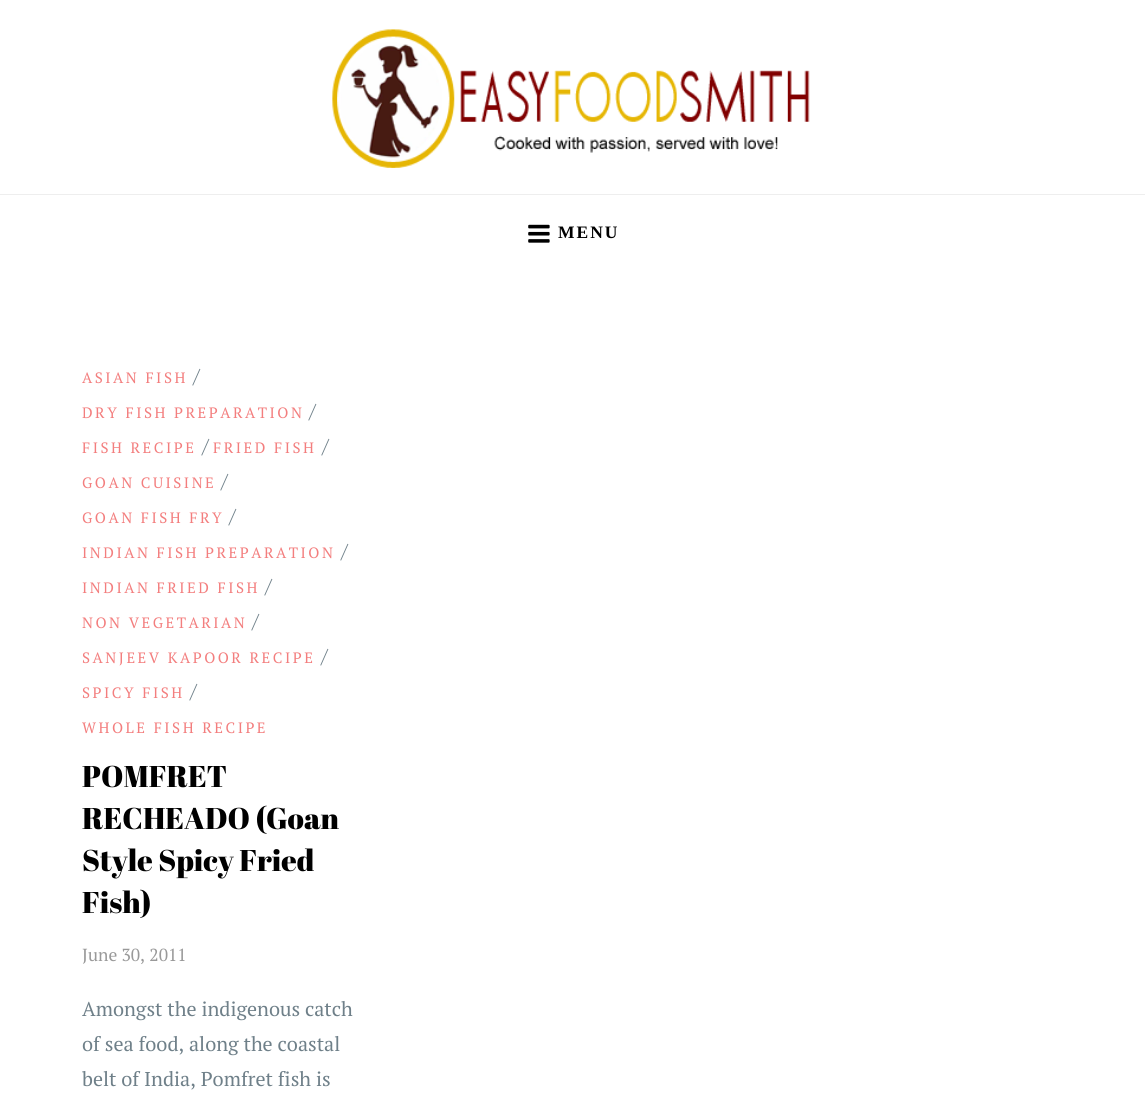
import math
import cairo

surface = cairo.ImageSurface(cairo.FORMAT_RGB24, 1145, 1103)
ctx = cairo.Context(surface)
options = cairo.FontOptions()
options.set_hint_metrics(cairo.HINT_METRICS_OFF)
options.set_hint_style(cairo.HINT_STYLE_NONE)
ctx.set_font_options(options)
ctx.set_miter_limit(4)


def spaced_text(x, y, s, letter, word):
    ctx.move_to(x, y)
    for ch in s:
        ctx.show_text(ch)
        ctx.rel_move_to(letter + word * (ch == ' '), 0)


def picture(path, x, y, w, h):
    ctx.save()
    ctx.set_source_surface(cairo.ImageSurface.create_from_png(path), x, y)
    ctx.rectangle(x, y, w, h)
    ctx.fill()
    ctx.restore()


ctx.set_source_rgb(1, 1, 1)
ctx.paint()
picture("img1.png", 332, 29, 478, 139)
ctx.set_source_rgb(0.933, 0.933, 0.933)
ctx.rectangle(0, 194, 1145, 1)
ctx.fill()
picture("img2.png", 528, 224, 22, 19)
ctx.select_font_face("Liberation Serif", cairo.FONT_SLANT_NORMAL, cairo.FONT_WEIGHT_BOLD)
ctx.set_font_size(17.5)
ctx.set_source_rgb(0, 0, 0)
spaced_text(558, 238, "MENU", 2, 0)
ctx.select_font_face("PT Serif")
ctx.set_font_size(15)
ctx.set_source_rgb(0.953, 0.494, 0.494)
spaced_text(82, 383, "ASIAN FISH", 2.5, 0)
ctx.set_font_size(20)
ctx.set_source_rgb(0.435, 0.502, 0.537)
ctx.move_to(193, 383)
ctx.show_text("/")
ctx.set_font_size(15)
ctx.set_source_rgb(0.953, 0.494, 0.494)
spaced_text(82, 418, "DRY FISH PREPARATION", 2.5, 0)
ctx.set_font_size(20)
ctx.set_source_rgb(0.435, 0.502, 0.537)
ctx.move_to(309, 418)
ctx.show_text("/")
ctx.set_font_size(15)
ctx.set_source_rgb(0.953, 0.494, 0.494)
spaced_text(82, 453, "FISH RECIPE", 2.5, 0)
ctx.set_font_size(20)
ctx.set_source_rgb(0.435, 0.502, 0.537)
ctx.move_to(202, 453)
ctx.show_text("/")
ctx.set_font_size(15)
ctx.set_source_rgb(0.953, 0.494, 0.494)
spaced_text(213, 453, "FRIED FISH", 2.5, 0)
ctx.set_font_size(20)
ctx.set_source_rgb(0.435, 0.502, 0.537)
ctx.move_to(322, 453)
ctx.show_text("/")
ctx.set_font_size(15)
ctx.set_source_rgb(0.953, 0.494, 0.494)
spaced_text(82, 488, "GOAN CUISINE", 2.5, 0)
ctx.set_font_size(20)
ctx.set_source_rgb(0.435, 0.502, 0.537)
ctx.move_to(221, 488)
ctx.show_text("/")
ctx.set_font_size(15)
ctx.set_source_rgb(0.953, 0.494, 0.494)
spaced_text(82, 523, "GOAN FISH FRY", 2.5, 0)
ctx.set_font_size(20)
ctx.set_source_rgb(0.435, 0.502, 0.537)
ctx.move_to(229, 523)
ctx.show_text("/")
ctx.set_font_size(15)
ctx.set_source_rgb(0.953, 0.494, 0.494)
spaced_text(82, 558, "INDIAN FISH PREPARATION", 2.5, 0)
ctx.set_font_size(20)
ctx.set_source_rgb(0.435, 0.502, 0.537)
ctx.move_to(341, 558)
ctx.show_text("/")
ctx.set_font_size(15)
ctx.set_source_rgb(0.953, 0.494, 0.494)
spaced_text(82, 593, "INDIAN FRIED FISH", 2.5, 0)
ctx.set_font_size(20)
ctx.set_source_rgb(0.435, 0.502, 0.537)
ctx.move_to(265, 593)
ctx.show_text("/")
ctx.set_font_size(15)
ctx.set_source_rgb(0.953, 0.494, 0.494)
spaced_text(82, 628, "NON VEGETARIAN", 2.5, 0)
ctx.set_font_size(20)
ctx.set_source_rgb(0.435, 0.502, 0.537)
ctx.move_to(252, 628)
ctx.show_text("/")
ctx.set_font_size(15)
ctx.set_source_rgb(0.953, 0.494, 0.494)
spaced_text(82, 663, "SANJEEV KAPOOR RECIPE", 2.5, 0)
ctx.set_font_size(20)
ctx.set_source_rgb(0.435, 0.502, 0.537)
ctx.move_to(321, 663)
ctx.show_text("/")
ctx.set_font_size(15)
ctx.set_source_rgb(0.953, 0.494, 0.494)
spaced_text(82, 698, "SPICY FISH", 2.5, 0)
ctx.set_font_size(20)
ctx.set_source_rgb(0.435, 0.502, 0.537)
ctx.move_to(190, 698)
ctx.show_text("/")
ctx.set_font_size(15)
ctx.set_source_rgb(0.953, 0.494, 0.494)
spaced_text(82, 733, "WHOLE FISH RECIPE", 2.5, 0)
ctx.select_font_face("Abril Fatface")
ctx.set_font_size(30)
ctx.set_source_rgb(0, 0, 0)
ctx.move_to(82, 787)
ctx.show_text("POMFRET")
ctx.move_to(82, 829)
ctx.show_text("RECHEADO (Goan")
ctx.move_to(82, 871)
ctx.show_text("Style Spicy Fried")
ctx.move_to(82, 913)
ctx.show_text("Fish)")
ctx.select_font_face("PT Serif")
ctx.set_font_size(17.5)
ctx.set_source_rgb(0.6, 0.6, 0.6)
ctx.move_to(82, 961)
ctx.show_text("June 30, 2011")
ctx.set_font_size(20)
ctx.set_source_rgb(0.435, 0.502, 0.537)
ctx.move_to(82, 1016)
ctx.show_text("Amongst the indigenous catch")
ctx.move_to(82, 1051)
ctx.show_text("of sea food, along the coastal")
ctx.move_to(82, 1086)
ctx.show_text("belt of India, Pomfret fish is")
surface.write_to_png("page.png")
